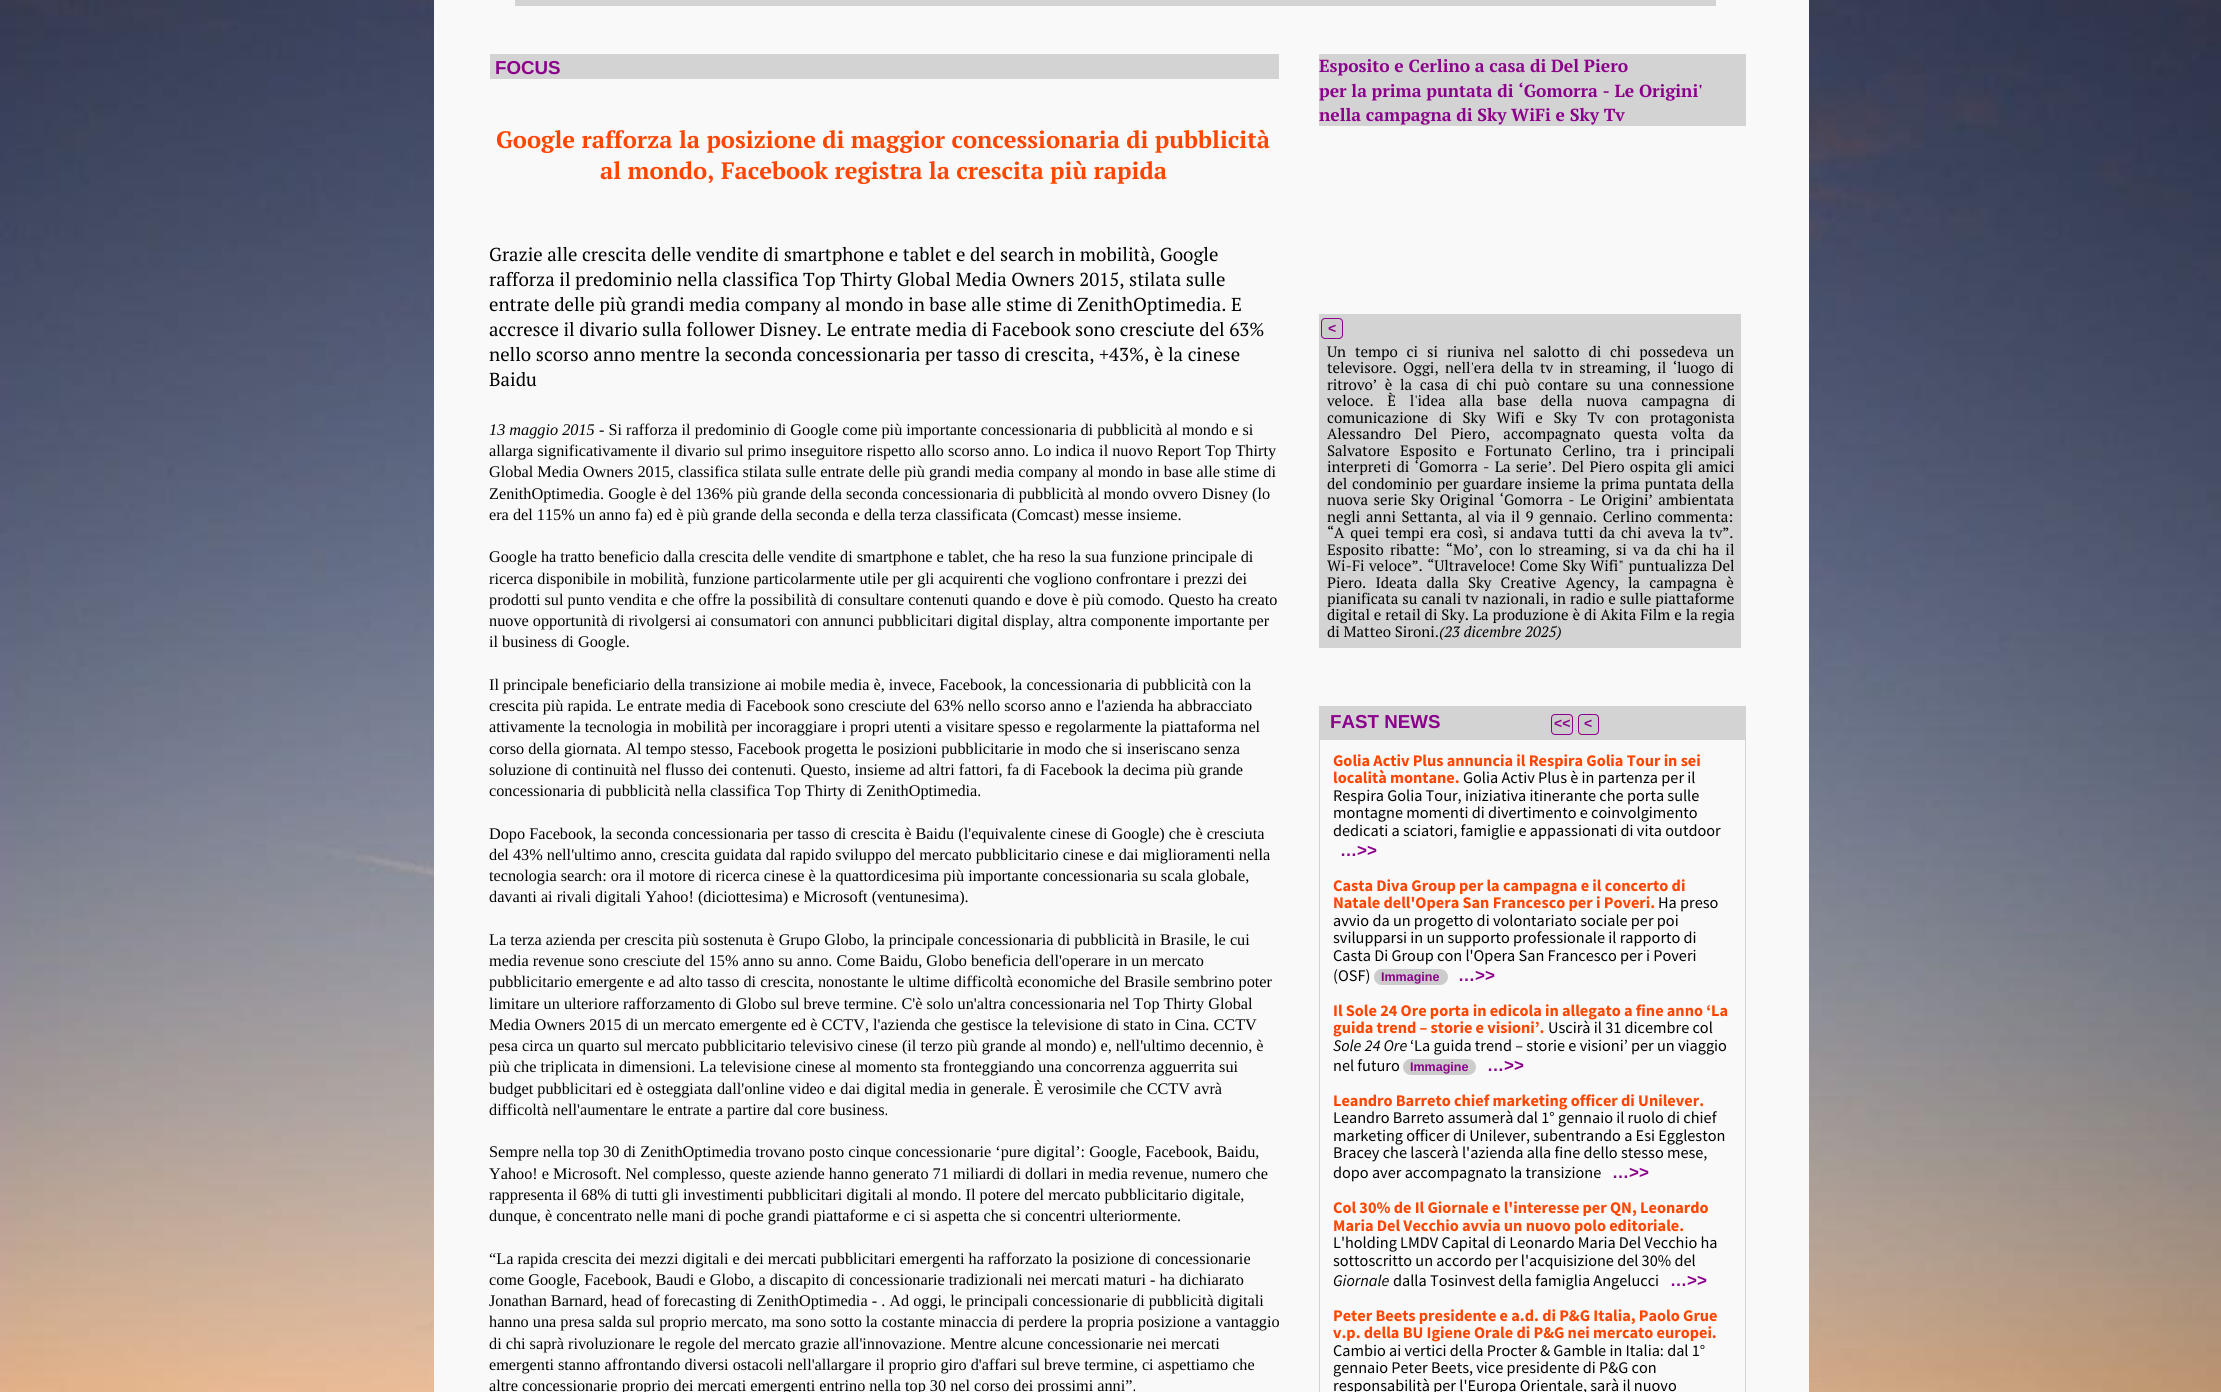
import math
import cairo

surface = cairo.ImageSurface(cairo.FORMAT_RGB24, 2221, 1392)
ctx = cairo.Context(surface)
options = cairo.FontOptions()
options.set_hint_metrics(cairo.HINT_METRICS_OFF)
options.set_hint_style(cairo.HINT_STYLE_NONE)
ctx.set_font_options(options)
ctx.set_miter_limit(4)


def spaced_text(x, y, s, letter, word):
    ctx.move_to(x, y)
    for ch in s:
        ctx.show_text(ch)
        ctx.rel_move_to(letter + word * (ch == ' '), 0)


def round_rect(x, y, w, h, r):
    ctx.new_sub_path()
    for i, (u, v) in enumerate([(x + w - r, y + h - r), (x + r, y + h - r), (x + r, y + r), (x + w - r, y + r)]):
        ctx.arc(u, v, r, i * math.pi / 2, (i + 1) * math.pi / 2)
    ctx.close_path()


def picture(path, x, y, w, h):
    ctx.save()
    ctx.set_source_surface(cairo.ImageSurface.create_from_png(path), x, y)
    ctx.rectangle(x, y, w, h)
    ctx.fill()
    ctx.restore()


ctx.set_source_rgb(1, 1, 1)
ctx.paint()
picture("img1.png", 0, 0, 2221, 1392)
ctx.set_source_rgb(0.973, 0.973, 0.973)
ctx.rectangle(434, 0, 1375, 1392)
ctx.fill()
ctx.set_source_rgb(0.827, 0.827, 0.827)
ctx.rectangle(515, 0, 1201, 6)
ctx.fill()
ctx.rectangle(490, 54, 789, 25)
ctx.fill()
ctx.select_font_face("Liberation Sans", cairo.FONT_SLANT_NORMAL, cairo.FONT_WEIGHT_BOLD)
ctx.set_font_size(18.75)
ctx.set_source_rgb(0.545, 0, 0.545)
ctx.move_to(495, 74)
ctx.show_text("FOCUS")
ctx.select_font_face("PT Serif", cairo.FONT_SLANT_NORMAL, cairo.FONT_WEIGHT_BOLD)
ctx.set_font_size(23.75)
ctx.set_source_rgb(1, 0.271, 0)
ctx.move_to(496, 148)
ctx.show_text("Google rafforza la posizione di maggior concessionaria di pubblicità")
ctx.move_to(600, 179)
ctx.show_text("al mondo, Facebook registra la crescita più rapida")
ctx.select_font_face("PT Serif")
ctx.set_font_size(18.75)
ctx.set_source_rgb(0, 0, 0)
ctx.move_to(489, 261)
ctx.show_text("Grazie alle crescita delle vendite di smartphone e tablet e del search in mobilità, Google")
ctx.move_to(489, 286)
ctx.show_text("rafforza il predominio nella classifica Top Thirty Global Media Owners 2015, stilata sulle")
ctx.move_to(489, 311)
ctx.show_text("entrate delle più grandi media company al mondo in base alle stime di ZenithOptimedia. E")
ctx.move_to(489, 336)
ctx.show_text("accresce il divario sulla follower Disney. Le entrate media di Facebook sono cresciute del 63%")
ctx.move_to(489, 361)
ctx.show_text("nello scorso anno mentre la seconda concessionaria per tasso di crescita, +43%, è la cinese")
ctx.move_to(489, 386)
ctx.show_text("Baidu")
ctx.select_font_face("Liberation Serif", cairo.FONT_SLANT_ITALIC)
ctx.set_font_size(16.25)
ctx.move_to(489, 435)
ctx.show_text("13 maggio 2015")
ctx.select_font_face("Liberation Serif")
ctx.move_to(599, 435)
ctx.show_text("- Si rafforza il predominio di Google come più importante concessionaria di pubblicità al mondo e si")
ctx.move_to(489, 456)
ctx.show_text("allarga significativamente il divario sul primo inseguitore rispetto allo scorso anno. Lo indica il nuovo Report Top Thirty")
ctx.move_to(489, 477)
ctx.show_text("Global Media Owners 2015, classifica stilata sulle entrate delle più grandi media company al mondo in base alle stime di")
ctx.move_to(489, 499)
ctx.show_text("ZenithOptimedia. Google è del 136% più grande della seconda concessionaria di pubblicità al mondo ovvero Disney (lo")
ctx.move_to(489, 520)
ctx.show_text("era del 115% un anno fa) ed è più grande della seconda e della terza classificata (Comcast) messe insieme.")
ctx.move_to(489, 562)
ctx.show_text("Google ha tratto beneficio dalla crescita delle vendite di smartphone e tablet, che ha reso la sua funzione principale di")
ctx.move_to(489, 584)
ctx.show_text("ricerca disponibile in mobilità, funzione particolarmente utile per gli acquirenti che vogliono confrontare i prezzi dei")
ctx.move_to(489, 605)
ctx.show_text("prodotti sul punto vendita e che offre la possibilità di consultare contenuti quando e dove è più comodo. Questo ha creato")
ctx.move_to(489, 626)
ctx.show_text("nuove opportunità di rivolgersi ai consumatori con annunci pubblicitari digital display, altra componente importante per")
ctx.move_to(489, 647)
ctx.show_text("il business di Google.")
ctx.move_to(489, 690)
ctx.show_text("Il principale beneficiario della transizione ai mobile media è, invece, Facebook, la concessionaria di pubblicità con la")
ctx.move_to(489, 711)
ctx.show_text("crescita più rapida. Le entrate media di Facebook sono cresciute del 63% nello scorso anno e l'azienda ha abbracciato")
ctx.move_to(489, 732)
ctx.show_text("attivamente la tecnologia in mobilità per incoraggiare i propri utenti a visitare spesso e regolarmente la piattaforma nel")
ctx.move_to(489, 754)
ctx.show_text("corso della giornata. Al tempo stesso, Facebook progetta le posizioni pubblicitarie in modo che si inseriscano senza")
ctx.move_to(489, 775)
ctx.show_text("soluzione di continuità nel flusso dei contenuti. Questo, insieme ad altri fattori, fa di Facebook la decima più grande")
ctx.move_to(489, 796)
ctx.show_text("concessionaria di pubblicità nella classifica Top Thirty di ZenithOptimedia.")
ctx.move_to(489, 839)
ctx.show_text("Dopo Facebook, la seconda concessionaria per tasso di crescita è Baidu (l'equivalente cinese di Google) che è cresciuta")
ctx.move_to(489, 860)
ctx.show_text("del 43% nell'ultimo anno, crescita guidata dal rapido sviluppo del mercato pubblicitario cinese e dai miglioramenti nella")
ctx.move_to(489, 881)
ctx.show_text("tecnologia search: ora il motore di ricerca cinese è la quattordicesima più importante concessionaria su scala globale,")
ctx.move_to(489, 902)
ctx.show_text("davanti ai rivali digitali Yahoo! (diciottesima) e Microsoft (ventunesima).")
ctx.move_to(489, 945)
ctx.show_text("La terza azienda per crescita più sostenuta è Grupo Globo, la principale concessionaria di pubblicità in Brasile, le cui")
ctx.move_to(489, 966)
ctx.show_text("media revenue sono cresciute del 15% anno su anno. Come Baidu, Globo beneficia dell'operare in un mercato")
ctx.move_to(489, 987)
ctx.show_text("pubblicitario emergente e ad alto tasso di crescita, nonostante le ultime difficoltà economiche del Brasile sembrino poter")
ctx.move_to(489, 1009)
ctx.show_text("limitare un ulteriore rafforzamento di Globo sul breve termine. C'è solo un'altra concessionaria nel Top Thirty Global")
ctx.move_to(489, 1030)
ctx.show_text("Media Owners 2015 di un mercato emergente ed è CCTV, l'azienda che gestisce la televisione di stato in Cina. CCTV")
ctx.move_to(489, 1051)
ctx.show_text("pesa circa un quarto sul mercato pubblicitario televisivo cinese (il terzo più grande al mondo) e, nell'ultimo decennio, è")
ctx.move_to(489, 1072)
ctx.show_text("più che triplicata in dimensioni. La televisione cinese al momento sta fronteggiando una concorrenza agguerrita sui")
ctx.move_to(489, 1094)
ctx.show_text("budget pubblicitari ed è osteggiata dall'online video e dai digital media in generale. È verosimile che CCTV avrà")
ctx.move_to(489, 1115)
ctx.show_text("difficoltà nell'aumentare le entrate a partire dal core business.")
ctx.move_to(489, 1157)
ctx.show_text("Sempre nella top 30 di ZenithOptimedia trovano posto cinque concessionarie ‘pure digital’: Google, Facebook, Baidu,")
ctx.move_to(489, 1179)
ctx.show_text("Yahoo! e Microsoft. Nel complesso, queste aziende hanno generato 71 miliardi di dollari in media revenue, numero che")
ctx.move_to(489, 1200)
ctx.show_text("rappresenta il 68% di tutti gli investimenti pubblicitari digitali al mondo. Il potere del mercato pubblicitario digitale,")
ctx.move_to(489, 1221)
ctx.show_text("dunque, è concentrato nelle mani di poche grandi piattaforme e ci si aspetta che si concentri ulteriormente.")
ctx.move_to(489, 1264)
ctx.show_text("“La rapida crescita dei mezzi digitali e dei mercati pubblicitari emergenti ha rafforzato la posizione di concessionarie")
ctx.move_to(489, 1285)
ctx.show_text("come Google, Facebook, Baudi e Globo, a discapito di concessionarie tradizionali nei mercati maturi - ha dichiarato")
ctx.move_to(489, 1306)
ctx.show_text("Jonathan Barnard, head of forecasting di ZenithOptimedia - . Ad oggi, le principali concessionarie di pubblicità digitali")
ctx.move_to(489, 1327)
ctx.show_text("hanno una presa salda sul proprio mercato, ma sono sotto la costante minaccia di perdere la propria posizione a vantaggio")
ctx.move_to(489, 1349)
ctx.show_text("di chi saprà rivoluzionare le regole del mercato grazie all'innovazione. Mentre alcune concessionarie nei mercati")
ctx.move_to(489, 1370)
ctx.show_text("emergenti stanno affrontando diversi ostacoli nell'allargare il proprio giro d'affari sul breve termine, ci aspettiamo che")
ctx.move_to(489, 1391)
ctx.show_text("altre concessionarie proprio dei mercati emergenti entrino nella top 30 nel corso dei prossimi anni”.")
ctx.set_source_rgb(0.827, 0.827, 0.827)
ctx.rectangle(1319, 54, 427, 72)
ctx.fill()
ctx.select_font_face("PT Serif", cairo.FONT_SLANT_NORMAL, cairo.FONT_WEIGHT_BOLD)
ctx.set_font_size(17.5)
ctx.set_source_rgb(0.545, 0, 0.545)
ctx.move_to(1319, 72)
ctx.show_text("Esposito e Cerlino a casa di Del Piero")
ctx.move_to(1319, 97)
ctx.show_text("per la prima puntata di ‘Gomorra - Le Origini'")
ctx.move_to(1319, 121)
ctx.show_text("nella campagna di Sky WiFi e Sky Tv")
ctx.set_source_rgb(0.827, 0.827, 0.827)
ctx.rectangle(1319, 314, 422, 334)
ctx.fill()
ctx.set_source_rgb(0.8, 0.8, 0.8)
round_rect(1321.5, 318.5, 21, 20, 3.5)
ctx.fill_preserve()
ctx.set_source_rgb(0.545, 0, 0.545)
ctx.set_line_width(1)
ctx.stroke()
ctx.select_font_face("Liberation Sans", cairo.FONT_SLANT_NORMAL, cairo.FONT_WEIGHT_BOLD)
ctx.set_font_size(14)
ctx.move_to(1328, 333)
ctx.show_text("<")
ctx.select_font_face("PT Serif")
ctx.set_font_size(15)
ctx.set_source_rgb(0, 0, 0)
spaced_text(1327, 357, "Un tempo ci si riuniva nel salotto di chi possedeva un", 0, 5.25)
spaced_text(1327, 373, "televisore. Oggi, nell'era della tv in streaming, il ‘luogo di", 0, 2.75)
spaced_text(1327, 390, "ritrovo’ è la casa di chi può contare su una connessione", 0, 4)
spaced_text(1327, 406, "veloce. È l'idea alla base della nuova campagna di", 0, 10)
spaced_text(1327, 423, "comunicazione di Sky Wifi e Sky Tv con protagonista", 0, 7)
spaced_text(1327, 439, "Alessandro Del Piero, accompagnato questa volta da", 0, 9.75)
spaced_text(1327, 456, "Salvatore Esposito e Fortunato Cerlino, tra i principali", 0, 6.75)
spaced_text(1327, 472, "interpreti di ‘Gomorra - La serie’. Del Piero ospita gli amici", 0, 1.6)
spaced_text(1327, 489, "del condominio per guardare insieme la prima puntata della", 0, 1)
spaced_text(1327, 505, "nuova serie Sky Original ‘Gomorra - Le Origini’ ambientata", 0, 1.75)
spaced_text(1327, 522, "negli anni Settanta, al via il 9 gennaio. Cerlino commenta:", 0, 2)
spaced_text(1327, 538, "“A quei tempi era così, si andava tutti da chi aveva la tv”.", 0, 2.25)
spaced_text(1327, 555, "Esposito ribatte: “Mo’, con lo streaming, si va da chi ha il", 0, 2.5)
spaced_text(1327, 571, "Wi-Fi veloce”. “Ultraveloce! Come Sky Wifi\" puntualizza Del", 0, 0.75)
spaced_text(1327, 588, "Piero. Ideata dalla Sky Creative Agency, la campagna è", 0, 5.5)
spaced_text(1327, 604, "pianificata su canali tv nazionali, in radio e sulle piattaforme", 0, 0.25)
spaced_text(1327, 620, "digital e retail di Sky. La produzione è di Akita Film e la regia", 0, 0.25)
ctx.move_to(1327, 637)
ctx.show_text("di Matteo Sironi.")
ctx.select_font_face("PT Serif", cairo.FONT_SLANT_ITALIC)
ctx.move_to(1439, 637)
ctx.show_text("(23 dicembre 2025)")
ctx.set_source_rgb(0.827, 0.827, 0.827)
ctx.rectangle(1319, 706, 427, 33)
ctx.fill()
ctx.select_font_face("Liberation Sans", cairo.FONT_SLANT_NORMAL, cairo.FONT_WEIGHT_BOLD)
ctx.set_font_size(18.75)
ctx.set_source_rgb(0.545, 0, 0.545)
ctx.move_to(1330, 728)
ctx.show_text("FAST NEWS")
ctx.set_source_rgb(0.8, 0.8, 0.8)
round_rect(1551.5, 714.5, 21, 20, 3.5)
ctx.fill_preserve()
ctx.set_source_rgb(0.545, 0, 0.545)
ctx.stroke()
ctx.set_font_size(14)
ctx.move_to(1554, 728)
ctx.show_text("<<")
ctx.set_source_rgb(0.8, 0.8, 0.8)
round_rect(1578.5, 714.5, 20, 20, 3.5)
ctx.fill_preserve()
ctx.set_source_rgb(0.545, 0, 0.545)
ctx.stroke()
ctx.move_to(1584, 728)
ctx.show_text("<")
ctx.rectangle(1319.5, 739.5, 426, 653)
ctx.set_source_rgb(0.827, 0.827, 0.827)
ctx.stroke()
ctx.select_font_face("Source Sans Pro", cairo.FONT_SLANT_NORMAL, cairo.FONT_WEIGHT_BOLD)
ctx.set_font_size(16.25)
ctx.set_source_rgb(1, 0.271, 0)
ctx.move_to(1333, 766)
ctx.show_text("Golia Activ Plus annuncia il Respira Golia Tour in sei")
ctx.move_to(1333, 783)
ctx.show_text("località montane.")
ctx.select_font_face("Source Sans Pro")
ctx.set_source_rgb(0, 0, 0)
ctx.move_to(1463, 783)
ctx.show_text("Golia Activ Plus è in partenza per il")
ctx.move_to(1333, 801)
ctx.show_text("Respira Golia Tour, iniziativa itinerante che porta sulle")
ctx.move_to(1333, 818)
ctx.show_text("montagne momenti di divertimento e coinvolgimento")
ctx.move_to(1333, 836)
ctx.show_text("dedicati a sciatori, famiglie e appassionati di vita outdoor")
ctx.select_font_face("Liberation Sans", cairo.FONT_SLANT_NORMAL, cairo.FONT_WEIGHT_BOLD)
ctx.set_font_size(17)
ctx.set_source_rgb(0.545, 0, 0.545)
ctx.move_to(1340, 856)
ctx.show_text("…>>")
ctx.select_font_face("Source Sans Pro", cairo.FONT_SLANT_NORMAL, cairo.FONT_WEIGHT_BOLD)
ctx.set_font_size(16.25)
ctx.set_source_rgb(1, 0.271, 0)
ctx.move_to(1333, 891)
ctx.show_text("Casta Diva Group per la campagna e il concerto di")
ctx.move_to(1333, 908)
ctx.show_text("Natale dell'Opera San Francesco per i Poveri.")
ctx.select_font_face("Source Sans Pro")
ctx.set_source_rgb(0, 0, 0)
ctx.move_to(1658, 908)
ctx.show_text("Ha preso")
ctx.move_to(1333, 926)
ctx.show_text("avvio da un progetto di volontariato sociale per poi")
ctx.move_to(1333, 943)
ctx.show_text("svilupparsi in un supporto professionale il rapporto di")
ctx.move_to(1333, 961)
ctx.show_text("Casta Di Group con l'Opera San Francesco per i Poveri")
ctx.move_to(1333, 981)
ctx.show_text("(OSF)")
ctx.set_source_rgb(0.8, 0.8, 0.8)
round_rect(1374, 969, 74, 16, 8)
ctx.fill()
ctx.select_font_face("Liberation Sans", cairo.FONT_SLANT_NORMAL, cairo.FONT_WEIGHT_BOLD)
ctx.set_font_size(12.5)
ctx.set_source_rgb(0.545, 0, 0.545)
ctx.move_to(1381, 981)
ctx.show_text("Immagine")
ctx.set_font_size(17)
ctx.move_to(1458, 981)
ctx.show_text("…>>")
ctx.select_font_face("Source Sans Pro", cairo.FONT_SLANT_NORMAL, cairo.FONT_WEIGHT_BOLD)
ctx.set_font_size(16.25)
ctx.set_source_rgb(1, 0.271, 0)
ctx.move_to(1333, 1016)
ctx.show_text("Il Sole 24 Ore porta in edicola in allegato a fine anno ‘La")
ctx.move_to(1333, 1033)
ctx.show_text("guida trend – storie e visioni’.")
ctx.select_font_face("Source Sans Pro")
ctx.set_source_rgb(0, 0, 0)
ctx.move_to(1548, 1033)
ctx.show_text("Uscirà il 31 dicembre col")
ctx.select_font_face("Source Sans Pro", cairo.FONT_SLANT_ITALIC)
ctx.move_to(1333, 1051)
ctx.show_text("Sole 24 Ore")
ctx.select_font_face("Source Sans Pro")
ctx.move_to(1410, 1051)
ctx.show_text("‘La guida trend – storie e visioni’ per un viaggio")
ctx.move_to(1333, 1071)
ctx.show_text("nel futuro")
ctx.set_source_rgb(0.8, 0.8, 0.8)
round_rect(1403, 1059, 73, 16, 8)
ctx.fill()
ctx.select_font_face("Liberation Sans", cairo.FONT_SLANT_NORMAL, cairo.FONT_WEIGHT_BOLD)
ctx.set_font_size(12.5)
ctx.set_source_rgb(0.545, 0, 0.545)
ctx.move_to(1410, 1071)
ctx.show_text("Immagine")
ctx.set_font_size(17)
ctx.move_to(1487, 1071)
ctx.show_text("…>>")
ctx.select_font_face("Source Sans Pro", cairo.FONT_SLANT_NORMAL, cairo.FONT_WEIGHT_BOLD)
ctx.set_font_size(16.25)
ctx.set_source_rgb(1, 0.271, 0)
ctx.move_to(1333, 1106)
ctx.show_text("Leandro Barreto chief marketing officer di Unilever.")
ctx.select_font_face("Source Sans Pro")
ctx.set_source_rgb(0, 0, 0)
ctx.move_to(1333, 1123)
ctx.show_text("Leandro Barreto assumerà dal 1° gennaio il ruolo di chief")
ctx.move_to(1333, 1141)
ctx.show_text("marketing officer di Unilever, subentrando a Esi Eggleston")
ctx.move_to(1333, 1158)
ctx.show_text("Bracey che lascerà l'azienda alla fine dello stesso mese,")
ctx.move_to(1333, 1178)
ctx.show_text("dopo aver accompagnato la transizione")
ctx.select_font_face("Liberation Sans", cairo.FONT_SLANT_NORMAL, cairo.FONT_WEIGHT_BOLD)
ctx.set_font_size(17)
ctx.set_source_rgb(0.545, 0, 0.545)
ctx.move_to(1612, 1178)
ctx.show_text("…>>")
ctx.select_font_face("Source Sans Pro", cairo.FONT_SLANT_NORMAL, cairo.FONT_WEIGHT_BOLD)
ctx.set_font_size(16.25)
ctx.set_source_rgb(1, 0.271, 0)
ctx.move_to(1333, 1213)
ctx.show_text("Col 30% de Il Giornale e l'interesse per QN, Leonardo")
ctx.move_to(1333, 1231)
ctx.show_text("Maria Del Vecchio avvia un nuovo polo editoriale.")
ctx.select_font_face("Source Sans Pro")
ctx.set_source_rgb(0, 0, 0)
ctx.move_to(1333, 1248)
ctx.show_text("L'holding LMDV Capital di Leonardo Maria Del Vecchio ha")
ctx.move_to(1333, 1266)
ctx.show_text("sottoscritto un accordo per l'acquisizione del 30% del")
ctx.select_font_face("Source Sans Pro", cairo.FONT_SLANT_ITALIC)
ctx.move_to(1333, 1286)
ctx.show_text("Giornale")
ctx.select_font_face("Source Sans Pro")
ctx.move_to(1393, 1286)
ctx.show_text("dalla Tosinvest della famiglia Angelucci")
ctx.select_font_face("Liberation Sans", cairo.FONT_SLANT_NORMAL, cairo.FONT_WEIGHT_BOLD)
ctx.set_font_size(17)
ctx.set_source_rgb(0.545, 0, 0.545)
ctx.move_to(1670, 1286)
ctx.show_text("…>>")
ctx.select_font_face("Source Sans Pro", cairo.FONT_SLANT_NORMAL, cairo.FONT_WEIGHT_BOLD)
ctx.set_font_size(16.25)
ctx.set_source_rgb(1, 0.271, 0)
ctx.move_to(1333, 1321)
ctx.show_text("Peter Beets presidente e a.d. di P&G Italia, Paolo Grue")
ctx.move_to(1333, 1338)
ctx.show_text("v.p. della BU Igiene Orale di P&G nei mercato europei.")
ctx.select_font_face("Source Sans Pro")
ctx.set_source_rgb(0, 0, 0)
ctx.move_to(1333, 1356)
ctx.show_text("Cambio ai vertici della Procter & Gamble in Italia: dal 1°")
ctx.move_to(1333, 1373)
ctx.show_text("gennaio Peter Beets, vice presidente di P&G con")
ctx.move_to(1333, 1391)
ctx.show_text("responsabilità per l'Europa Orientale, sarà il nuovo")
surface.write_to_png("page.png")
